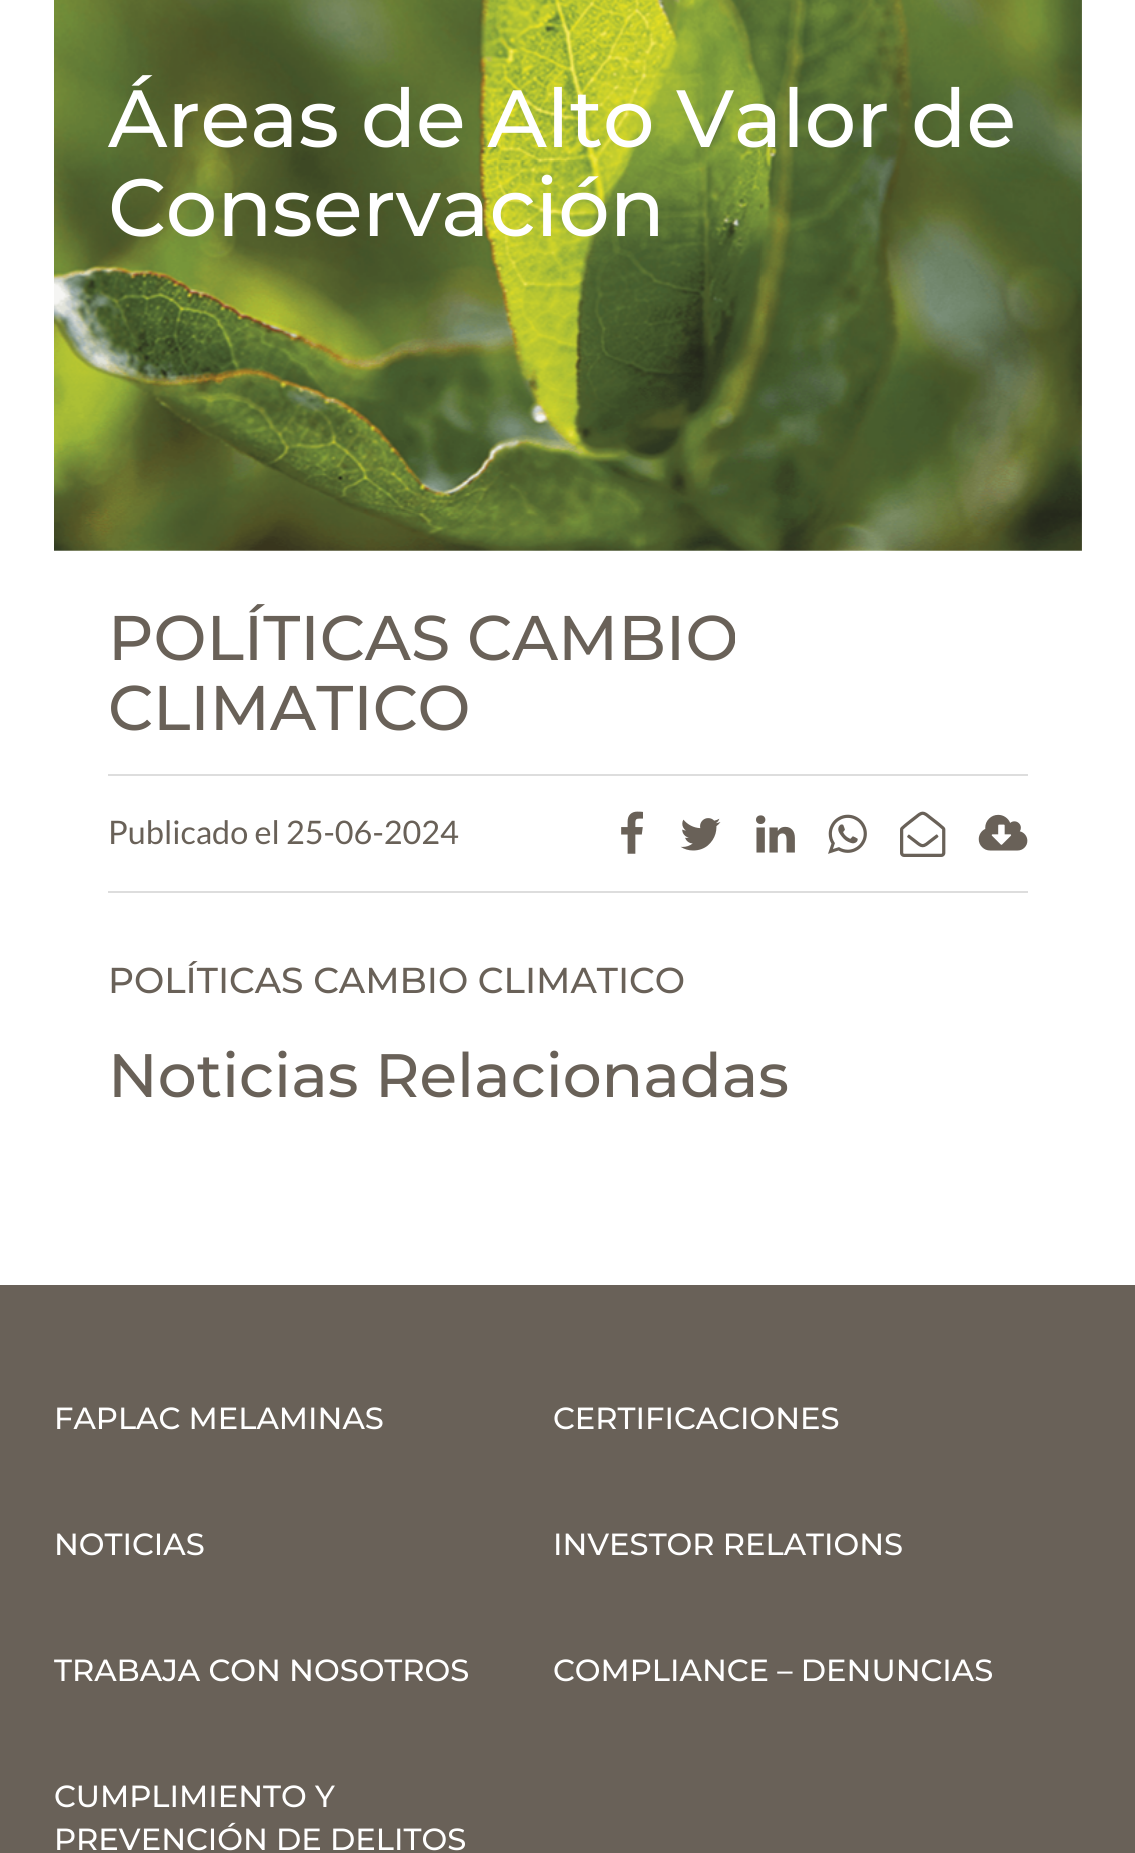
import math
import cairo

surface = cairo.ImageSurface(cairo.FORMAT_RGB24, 1135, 1853)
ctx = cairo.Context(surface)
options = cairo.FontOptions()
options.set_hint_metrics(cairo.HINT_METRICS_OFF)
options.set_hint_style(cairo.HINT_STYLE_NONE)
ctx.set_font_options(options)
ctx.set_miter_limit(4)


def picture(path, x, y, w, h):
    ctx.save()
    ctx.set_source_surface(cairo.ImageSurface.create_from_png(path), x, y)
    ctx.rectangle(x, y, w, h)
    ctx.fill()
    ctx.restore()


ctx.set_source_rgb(1, 1, 1)
ctx.paint()
picture("img1.png", 54, 0, 1028, 551)
ctx.select_font_face("Montserrat Medium")
ctx.set_font_size(81)
ctx.set_source_rgb(1, 1, 1)
ctx.move_to(108, 147)
ctx.show_text("Áreas de Alto Valor de")
ctx.move_to(108, 236)
ctx.show_text("Conservación")
ctx.set_font_size(63)
ctx.set_source_rgb(0.412, 0.38, 0.345)
ctx.move_to(108, 660)
ctx.show_text("POLÍTICAS CAMBIO")
ctx.move_to(108, 730)
ctx.show_text("CLIMATICO")
ctx.set_source_rgb(0.867, 0.867, 0.867)
ctx.rectangle(108, 774, 920, 2)
ctx.fill()
ctx.rectangle(108, 891, 920, 2)
ctx.fill()
ctx.select_font_face("Lato")
ctx.set_font_size(32.4)
ctx.set_source_rgb(0.412, 0.38, 0.345)
ctx.move_to(108, 844)
ctx.show_text("Publicado el 25-06-2024")
picture("img2.png", 621, 811, 22, 43)
picture("img3.png", 680, 818, 41, 33)
picture("img4.png", 756, 815, 39, 38)
picture("img5.png", 828, 814, 39, 40)
picture("img6.png", 900, 811, 46, 46)
picture("img7.png", 978, 814, 50, 37)
ctx.select_font_face("Montserrat Medium")
ctx.set_font_size(36)
ctx.move_to(108, 993)
ctx.show_text("POLÍTICAS CAMBIO CLIMATICO")
ctx.set_font_size(61.25)
ctx.move_to(108, 1097)
ctx.show_text("Noticias Relacionadas")
ctx.rectangle(0, 1285, 1135, 568)
ctx.fill()
ctx.set_font_size(30.6)
ctx.set_source_rgb(1, 1, 1)
ctx.move_to(54, 1429)
ctx.show_text("FAPLAC MELAMINAS")
ctx.move_to(553, 1429)
ctx.show_text("CERTIFICACIONES")
ctx.move_to(54, 1555)
ctx.show_text("NOTICIAS")
ctx.move_to(553, 1555)
ctx.show_text("INVESTOR RELATIONS")
ctx.move_to(54, 1681)
ctx.show_text("TRABAJA CON NOSOTROS")
ctx.move_to(553, 1681)
ctx.show_text("COMPLIANCE – DENUNCIAS")
ctx.move_to(54, 1807)
ctx.show_text("CUMPLIMIENTO Y")
ctx.move_to(54, 1850)
ctx.show_text("PREVENCIÓN DE DELITOS")
surface.write_to_png("page.png")
